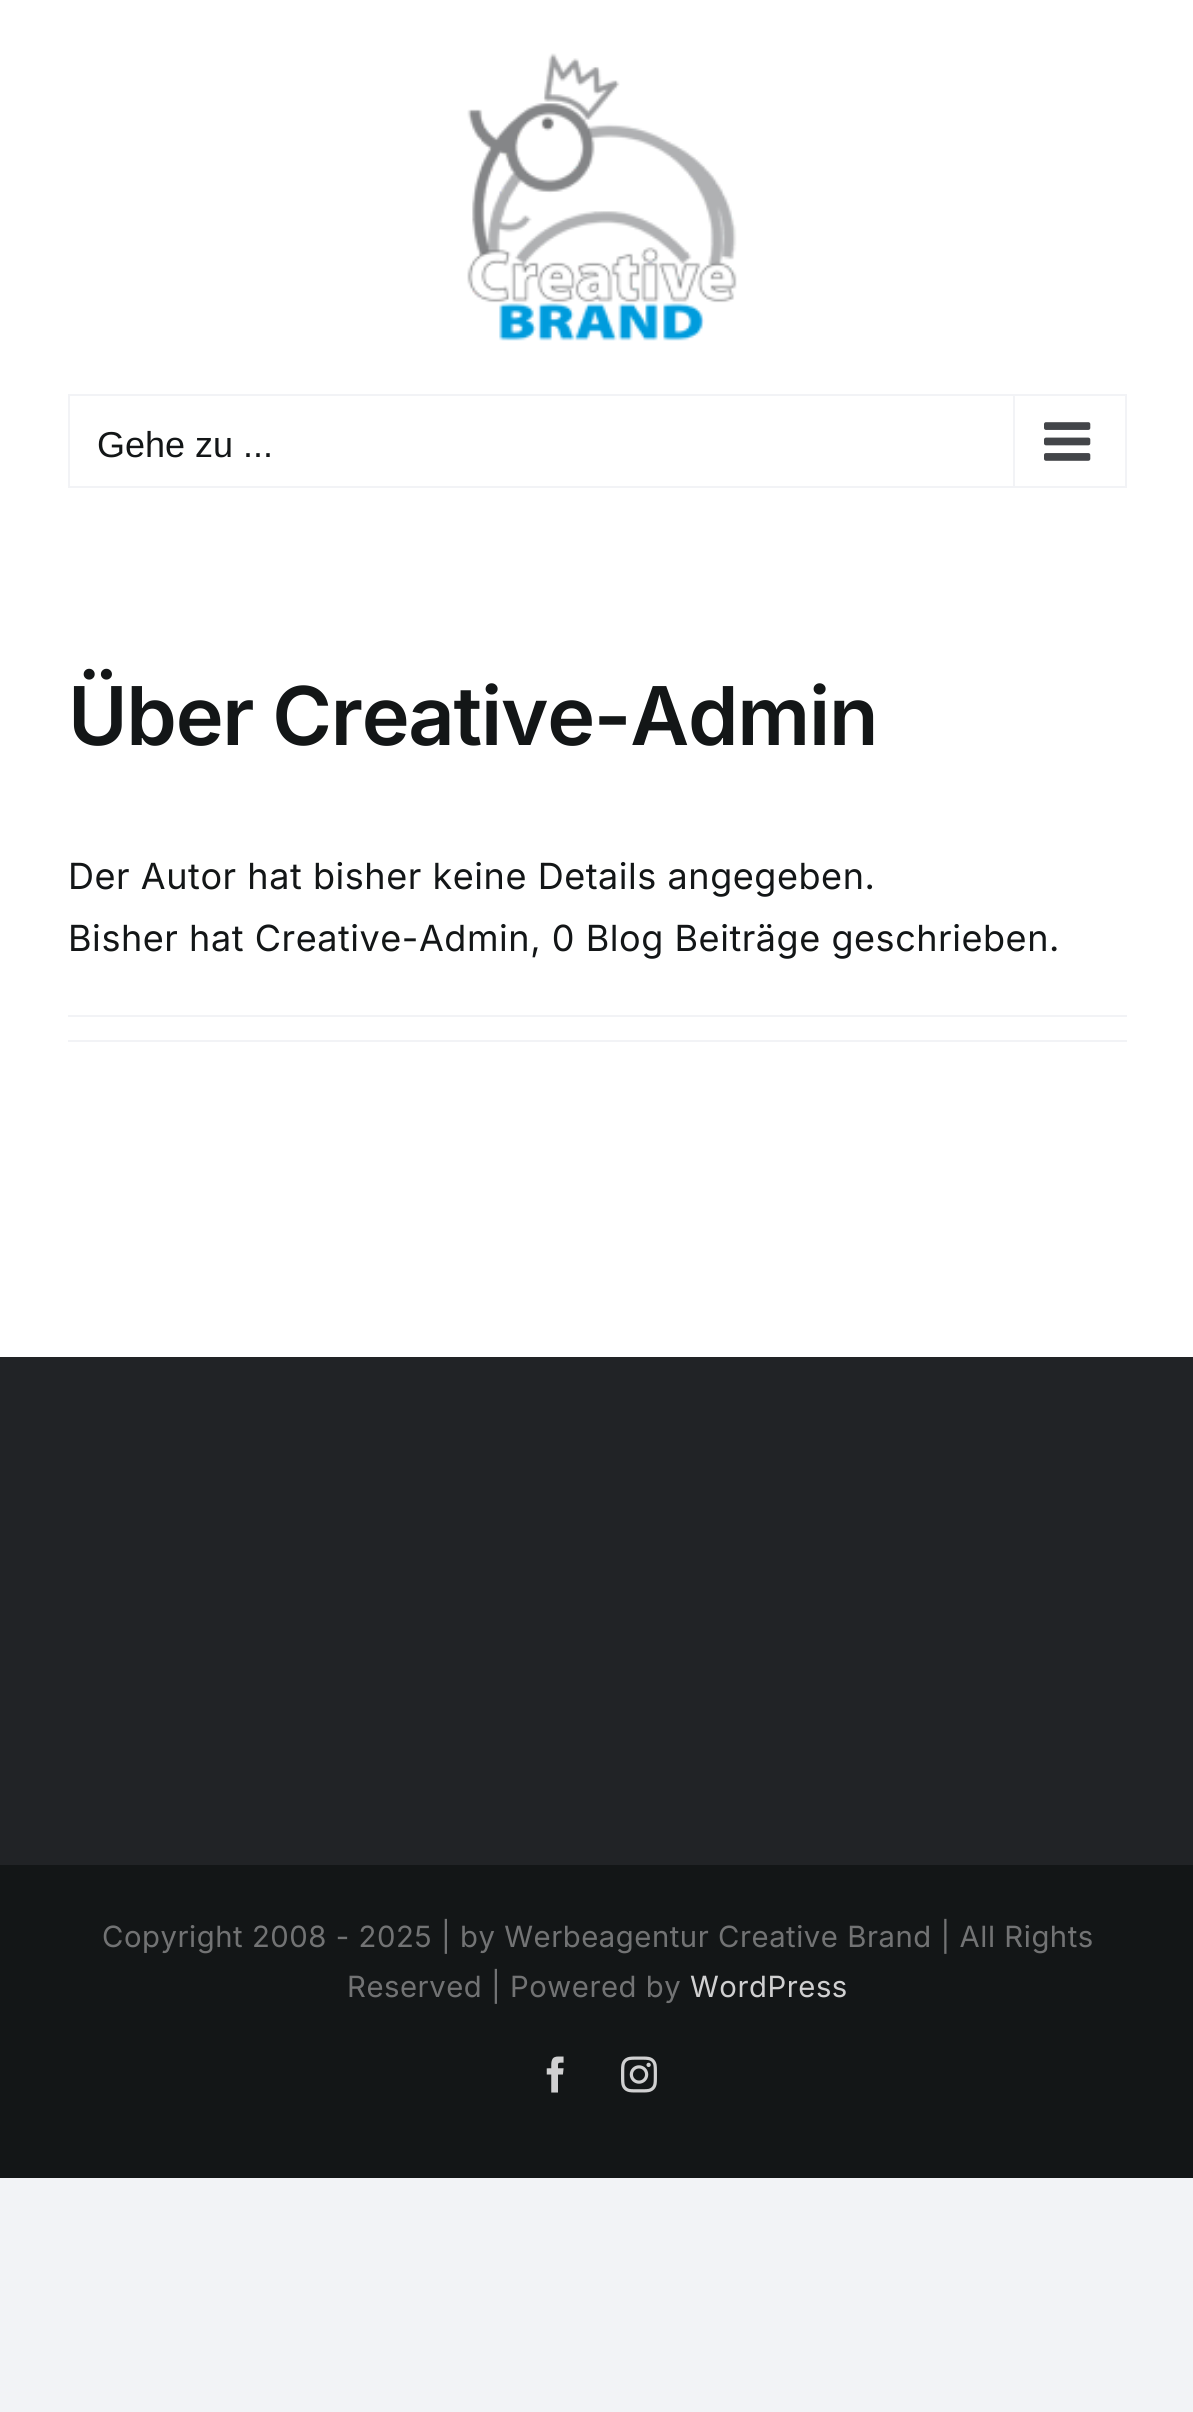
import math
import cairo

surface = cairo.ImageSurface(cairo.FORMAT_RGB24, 1193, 2412)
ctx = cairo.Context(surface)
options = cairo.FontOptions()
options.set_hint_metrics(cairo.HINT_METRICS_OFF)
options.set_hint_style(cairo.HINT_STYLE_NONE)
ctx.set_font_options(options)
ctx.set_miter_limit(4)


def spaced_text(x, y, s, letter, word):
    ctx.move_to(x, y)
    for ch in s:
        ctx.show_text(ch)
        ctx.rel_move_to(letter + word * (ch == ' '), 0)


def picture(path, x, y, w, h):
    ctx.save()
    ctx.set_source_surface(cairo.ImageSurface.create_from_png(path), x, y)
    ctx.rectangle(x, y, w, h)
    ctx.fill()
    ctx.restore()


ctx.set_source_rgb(0.949, 0.953, 0.961)
ctx.paint()
ctx.set_source_rgb(1, 1, 1)
ctx.rectangle(0, 0, 1193, 1357)
ctx.fill()
picture("img1.png", 467, 53, 270, 288)
ctx.rectangle(69, 395, 1057, 92)
ctx.set_source_rgb(0.949, 0.953, 0.961)
ctx.stroke()
ctx.select_font_face("Liberation Sans")
ctx.set_font_size(36)
ctx.set_source_rgb(0.078, 0.086, 0.09)
ctx.move_to(97, 457)
ctx.show_text("Gehe zu ...")
ctx.set_source_rgb(0.949, 0.953, 0.961)
ctx.rectangle(1013, 396, 2, 90)
ctx.fill()
picture("img2.png", 1044, 422, 47, 39)
ctx.select_font_face("Inter SemiBold")
ctx.set_font_size(81)
ctx.set_source_rgb(0.078, 0.086, 0.09)
spaced_text(68, 745, "Über Creative-Admin", -1.25, 0)
ctx.select_font_face("Inter")
ctx.set_font_size(36)
spaced_text(68, 889, "Der Autor hat bisher keine Details angegeben.", 0.55, 0)
spaced_text(68, 951, "Bisher hat Creative-Admin, 0 Blog Beiträge geschrieben.", 0.55, 0)
ctx.set_source_rgb(0.949, 0.953, 0.961)
ctx.rectangle(68, 1015, 1059, 2)
ctx.fill()
ctx.rectangle(68, 1040, 1059, 2)
ctx.fill()
ctx.set_source_rgb(0.129, 0.137, 0.149)
ctx.rectangle(0, 1357, 1193, 508)
ctx.fill()
ctx.set_source_rgb(0.078, 0.086, 0.09)
ctx.rectangle(0, 1865, 1193, 313)
ctx.fill()
ctx.set_font_size(29.25)
ctx.set_source_rgb(0.447, 0.451, 0.455)
spaced_text(102, 1947, "Copyright 2008 - 2025 | by Werbeagentur Creative Brand | All Rights", 0.55, 0)
spaced_text(347, 1997, "Reserved | Powered by", 0.55, 0)
ctx.set_source_rgb(0.816, 0.816, 0.82)
spaced_text(690, 1997, "WordPress", 0.55, 0)
picture("img3.png", 546, 2056, 18, 37)
picture("img4.png", 621, 2056, 36, 37)
surface.write_to_png("page.png")
